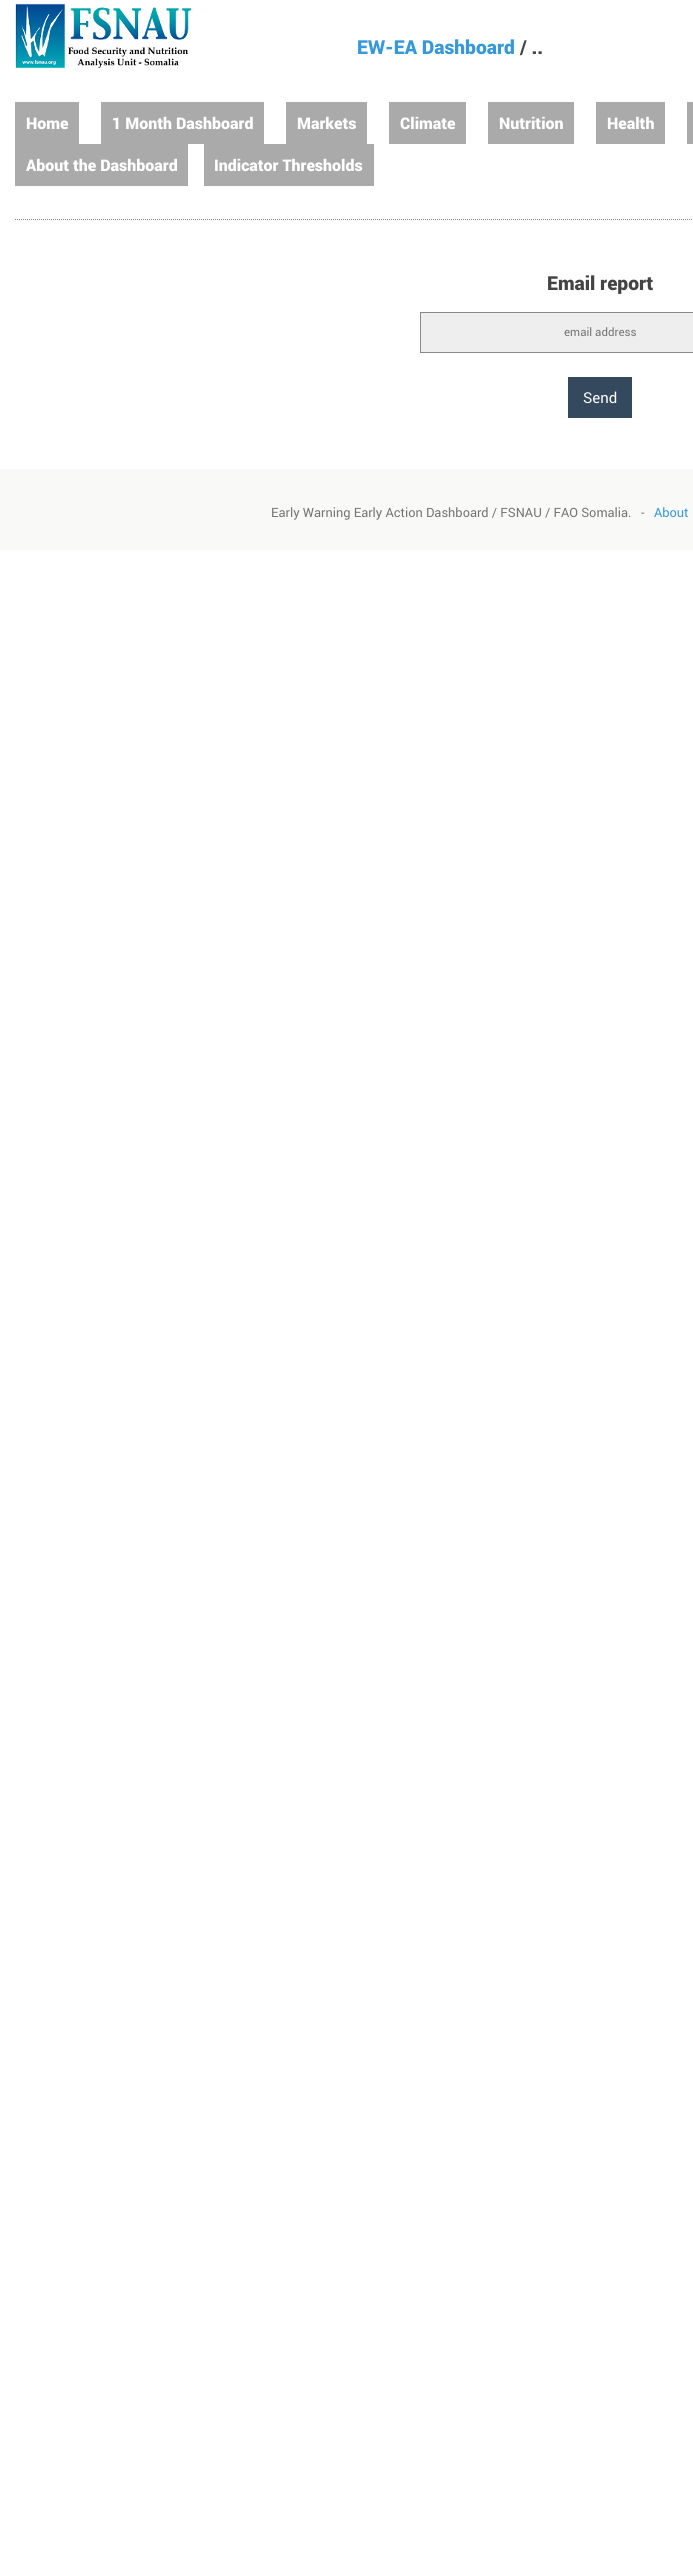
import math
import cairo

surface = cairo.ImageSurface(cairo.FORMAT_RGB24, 693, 2559)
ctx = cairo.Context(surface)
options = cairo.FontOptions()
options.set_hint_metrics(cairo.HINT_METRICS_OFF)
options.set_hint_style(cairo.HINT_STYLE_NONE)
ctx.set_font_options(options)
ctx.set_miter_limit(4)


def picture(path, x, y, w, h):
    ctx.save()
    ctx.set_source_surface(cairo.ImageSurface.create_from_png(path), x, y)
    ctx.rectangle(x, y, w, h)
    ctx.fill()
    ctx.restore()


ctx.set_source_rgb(1, 1, 1)
ctx.paint()
picture("img1.png", 15, 3, 177, 66)
ctx.select_font_face("Roboto Black")
ctx.set_font_size(19.25)
ctx.set_source_rgb(0.204, 0.596, 0.859)
ctx.move_to(357, 54)
ctx.show_text("EW-EA Dashboard")
ctx.set_source_rgb(0.267, 0.267, 0.267)
ctx.move_to(520, 54)
ctx.show_text("/ ..")
ctx.set_source_rgb(0.667, 0.667, 0.667)
ctx.rectangle(15, 102, 64, 42)
ctx.fill()
ctx.set_font_size(16)
ctx.set_source_rgb(1, 1, 1)
ctx.move_to(26, 129)
ctx.show_text("Home")
ctx.set_source_rgb(0.667, 0.667, 0.667)
ctx.rectangle(101, 102, 163, 42)
ctx.fill()
ctx.set_source_rgb(1, 1, 1)
ctx.move_to(112, 129)
ctx.show_text("1 Month Dashboard")
ctx.set_source_rgb(0.667, 0.667, 0.667)
ctx.rectangle(286, 102, 81, 42)
ctx.fill()
ctx.set_source_rgb(1, 1, 1)
ctx.move_to(297, 129)
ctx.show_text("Markets")
ctx.set_source_rgb(0.667, 0.667, 0.667)
ctx.rectangle(389, 102, 77, 42)
ctx.fill()
ctx.set_source_rgb(1, 1, 1)
ctx.move_to(400, 129)
ctx.show_text("Climate")
ctx.set_source_rgb(0.667, 0.667, 0.667)
ctx.rectangle(488, 102, 86, 42)
ctx.fill()
ctx.set_source_rgb(1, 1, 1)
ctx.move_to(499, 129)
ctx.show_text("Nutrition")
ctx.set_source_rgb(0.667, 0.667, 0.667)
ctx.rectangle(596, 102, 69, 42)
ctx.fill()
ctx.set_source_rgb(1, 1, 1)
ctx.move_to(607, 129)
ctx.show_text("Health")
ctx.set_source_rgb(0.667, 0.667, 0.667)
ctx.rectangle(687, 102, 6, 42)
ctx.fill()
ctx.rectangle(15, 144, 173, 42)
ctx.fill()
ctx.set_source_rgb(1, 1, 1)
ctx.move_to(26, 171)
ctx.show_text("About the Dashboard")
ctx.set_source_rgb(0.667, 0.667, 0.667)
ctx.rectangle(204, 144, 170, 42)
ctx.fill()
ctx.set_source_rgb(1, 1, 1)
ctx.move_to(214, 171)
ctx.show_text("Indicator Thresholds")
ctx.new_path()
ctx.move_to(15, 219.5)
ctx.line_to(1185, 219.5)
ctx.set_source_rgb(0.533, 0.533, 0.533)
ctx.set_line_width(1)
ctx.set_dash([1, 1])
ctx.stroke()
ctx.set_font_size(19.25)
ctx.set_source_rgb(0.267, 0.267, 0.267)
ctx.move_to(547, 290)
ctx.show_text("Email report")
ctx.set_source_rgb(0.933, 0.933, 0.933)
ctx.rectangle(420.5, 312.5, 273, 40)
ctx.fill_preserve()
ctx.set_source_rgb(0.533, 0.533, 0.533)
ctx.set_dash([])
ctx.stroke()
ctx.select_font_face("Roboto")
ctx.set_font_size(11.5)
ctx.set_source_rgb(0.459, 0.459, 0.459)
ctx.move_to(564, 336)
ctx.show_text("email address")
ctx.set_source_rgb(0.204, 0.286, 0.369)
ctx.rectangle(568, 377, 64, 41)
ctx.fill()
ctx.set_font_size(15)
ctx.set_source_rgb(1, 1, 1)
ctx.move_to(583, 403)
ctx.show_text("Send")
ctx.set_source_rgb(0.973, 0.976, 0.965)
ctx.rectangle(0, 469, 693, 81)
ctx.fill()
ctx.set_font_size(12.8)
ctx.set_source_rgb(0.459, 0.459, 0.459)
ctx.move_to(271, 517)
ctx.show_text("Early Warning Early Action Dashboard / FSNAU / FAO Somalia.")
ctx.move_to(641, 517)
ctx.show_text("-")
ctx.set_source_rgb(0.204, 0.596, 0.859)
ctx.move_to(654, 517)
ctx.show_text("About")
surface.write_to_png("page.png")
